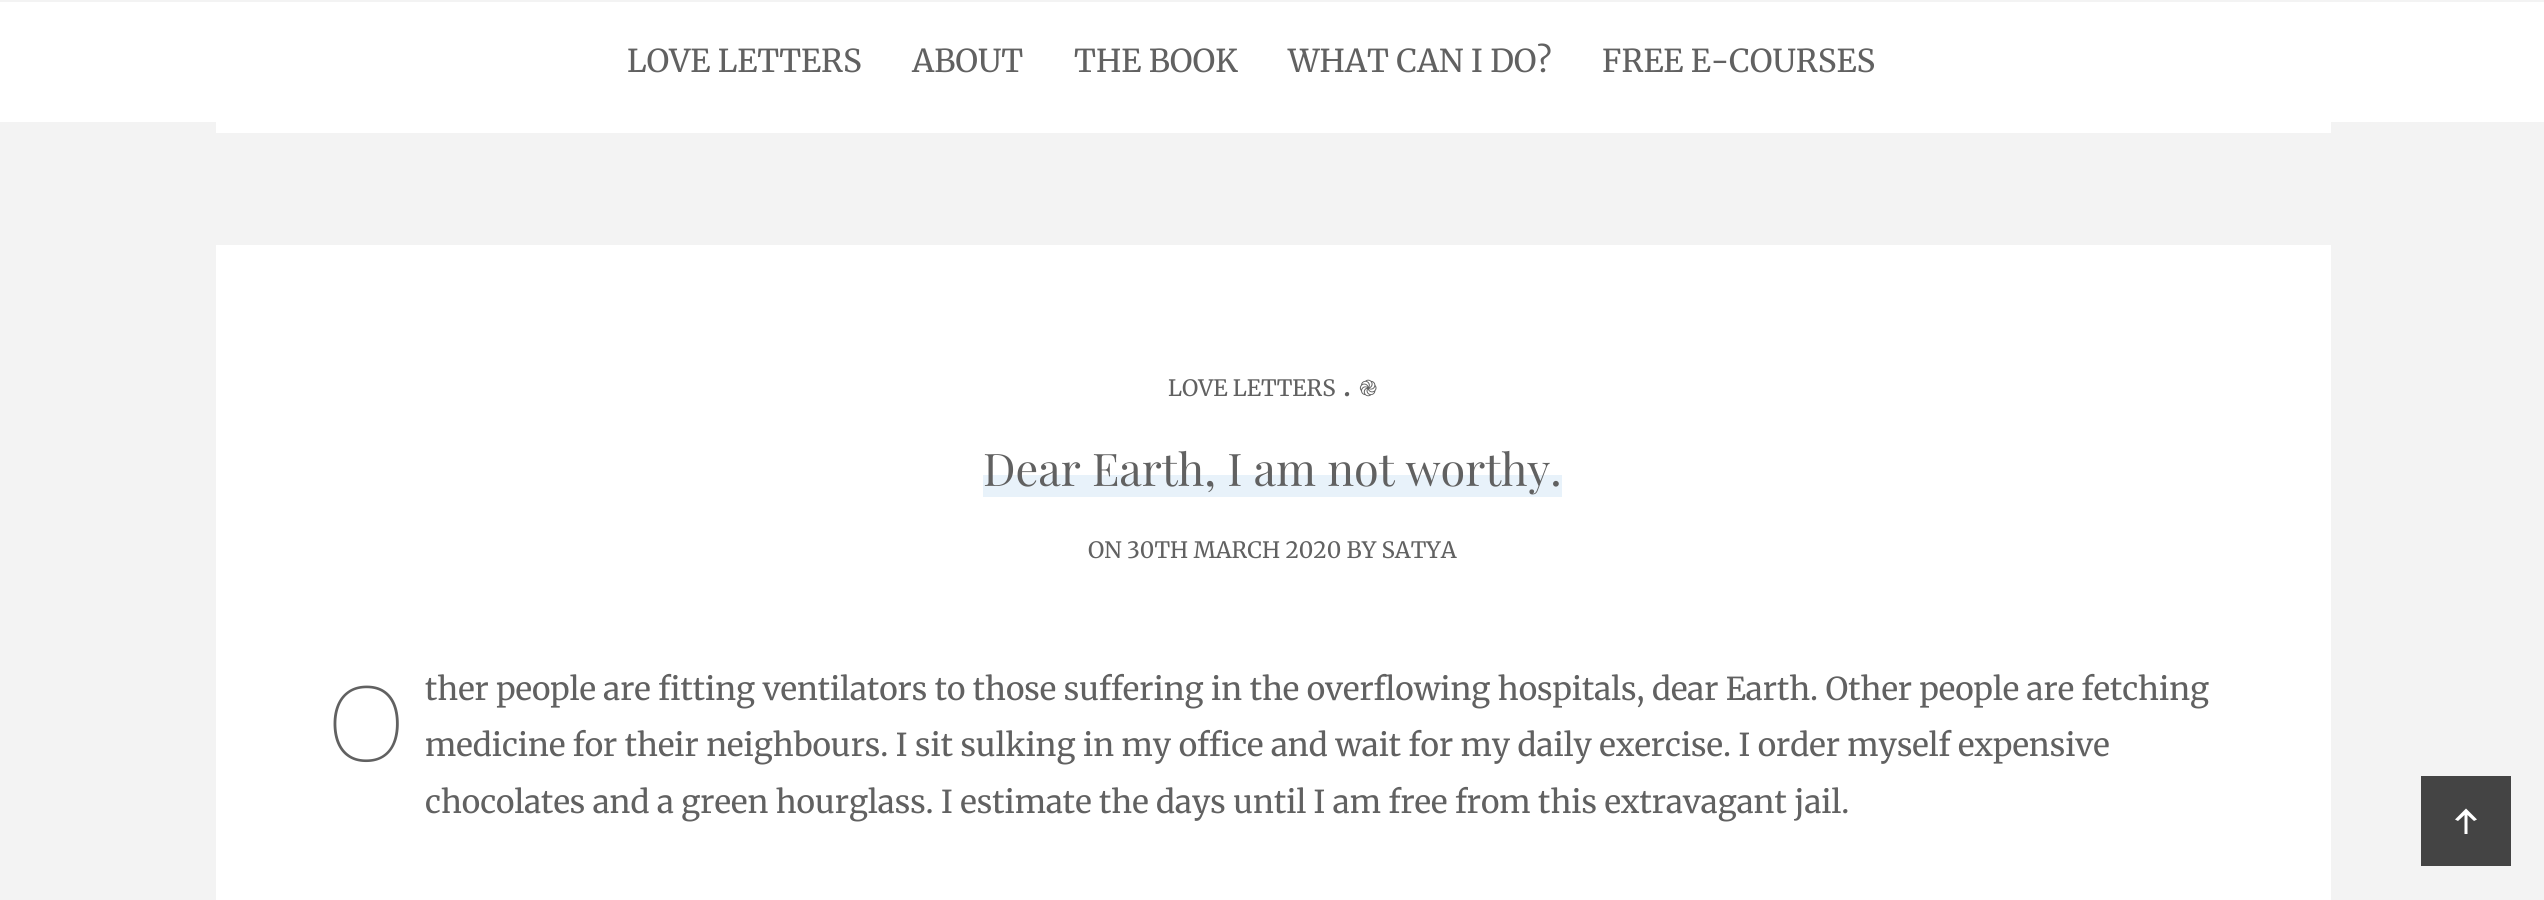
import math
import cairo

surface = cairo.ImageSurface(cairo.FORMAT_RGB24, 2544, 900)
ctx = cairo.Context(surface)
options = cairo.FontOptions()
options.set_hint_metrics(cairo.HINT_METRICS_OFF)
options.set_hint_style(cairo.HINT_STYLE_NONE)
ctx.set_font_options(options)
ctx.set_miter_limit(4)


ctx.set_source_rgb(0.953, 0.953, 0.953)
ctx.paint()
ctx.set_source_rgb(1, 1, 1)
ctx.rectangle(0, 2, 2544, 120)
ctx.fill()
ctx.select_font_face("Merriweather")
ctx.set_font_size(31.5)
ctx.set_source_rgb(0.38, 0.38, 0.38)
ctx.move_to(627, 72)
ctx.show_text("LOVE LETTERS")
ctx.move_to(912, 72)
ctx.show_text("ABOUT")
ctx.move_to(1074, 72)
ctx.show_text("THE BOOK")
ctx.move_to(1288, 72)
ctx.show_text("WHAT CAN I DO?")
ctx.move_to(1602, 72)
ctx.show_text("FREE E-COURSES")
ctx.set_source_rgb(1, 1, 1)
ctx.rectangle(216, 122, 2115, 11)
ctx.fill()
ctx.rectangle(216, 245, 2115, 655)
ctx.fill()
ctx.set_font_size(22.5)
ctx.set_source_rgb(0.38, 0.38, 0.38)
ctx.move_to(1168, 396)
ctx.show_text("LOVE LETTERS")
ctx.set_font_size(31.5)
ctx.move_to(1343, 396)
ctx.show_text(".")
ctx.select_font_face("Noto Sans Armenian")
ctx.set_font_size(22.5)
ctx.move_to(1359, 396)
ctx.show_text("֎")
ctx.set_source_rgb(0.91, 0.949, 0.98)
ctx.rectangle(983, 475, 579, 22)
ctx.fill()
ctx.select_font_face("Playfair Display")
ctx.set_font_size(45)
ctx.set_source_rgb(0.38, 0.38, 0.38)
ctx.move_to(983, 486)
ctx.show_text("Dear Earth, I am not worthy.")
ctx.select_font_face("Merriweather")
ctx.set_font_size(22.5)
ctx.move_to(1088, 558)
ctx.show_text("ON 30TH MARCH 2020 BY SATYA")
ctx.select_font_face("Noto Sans Thin")
ctx.set_font_size(104)
ctx.move_to(327, 761)
ctx.show_text("O")
ctx.select_font_face("Merriweather")
ctx.set_font_size(31.5)
ctx.move_to(425, 700)
ctx.show_text("ther people are fitting ventilators to those suffering in the overflowing hospitals, dear Earth. Other people are fetching")
ctx.move_to(425, 756)
ctx.show_text("medicine for their neighbours. I sit sulking in my office and wait for my daily exercise. I order myself expensive")
ctx.move_to(425, 813)
ctx.show_text("chocolates and a green hourglass. I estimate the days until I am free from this extravagant jail.")
ctx.set_source_rgb(0.267, 0.267, 0.267)
ctx.rectangle(2421, 776, 90, 90)
ctx.fill()
ctx.set_source_rgb(1, 1, 1)
ctx.new_path()
ctx.move_to(2467.5, 834)
ctx.line_to(2464.5, 834)
ctx.line_to(2464.5, 815)
ctx.line_to(2458, 821)
ctx.line_to(2455, 819.5)
ctx.line_to(2466, 808.5)
ctx.line_to(2477, 819.5)
ctx.line_to(2474, 821)
ctx.line_to(2467.5, 815)
ctx.close_path()
ctx.fill()
surface.write_to_png("page.png")
